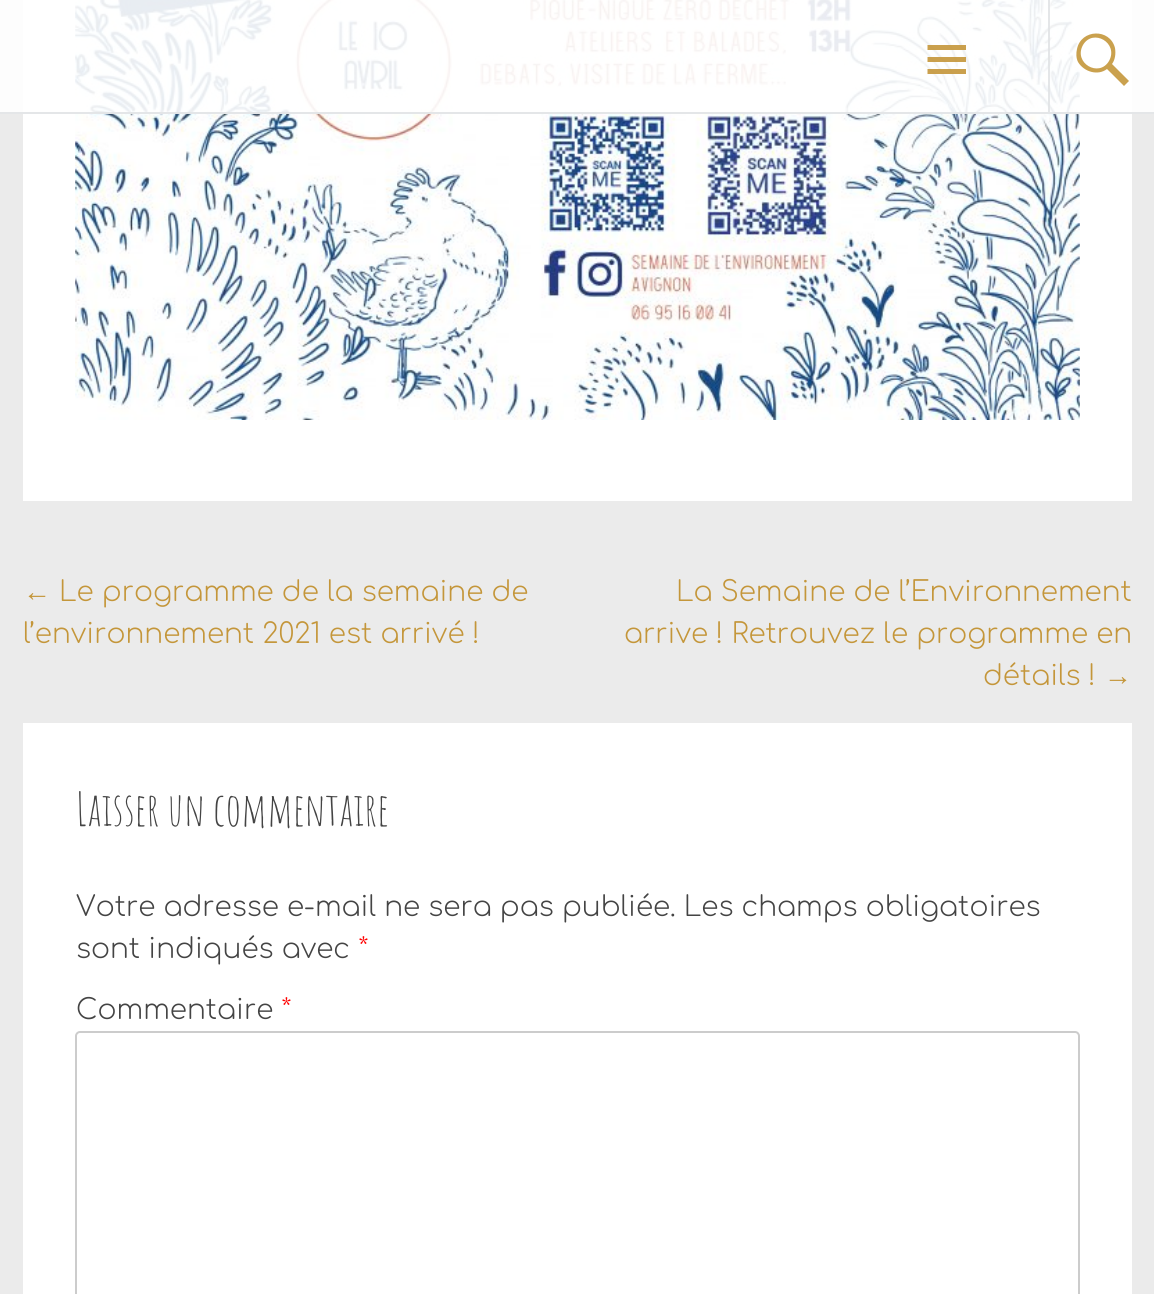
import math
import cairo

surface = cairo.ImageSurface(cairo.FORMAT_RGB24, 1154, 1294)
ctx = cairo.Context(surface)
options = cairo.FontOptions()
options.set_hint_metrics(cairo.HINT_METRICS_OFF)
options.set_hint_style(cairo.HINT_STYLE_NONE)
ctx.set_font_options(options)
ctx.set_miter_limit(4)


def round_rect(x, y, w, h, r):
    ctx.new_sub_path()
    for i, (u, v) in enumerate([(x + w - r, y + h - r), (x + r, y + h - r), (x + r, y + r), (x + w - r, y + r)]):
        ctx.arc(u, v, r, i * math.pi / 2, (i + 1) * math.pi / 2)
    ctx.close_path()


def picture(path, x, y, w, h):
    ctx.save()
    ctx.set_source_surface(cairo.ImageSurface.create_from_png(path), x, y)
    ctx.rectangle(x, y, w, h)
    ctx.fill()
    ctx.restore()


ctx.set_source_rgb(0.918, 0.918, 0.918)
ctx.paint()
ctx.set_source_rgb(1, 1, 1)
ctx.rectangle(23, 0, 1109, 501)
ctx.fill()
picture("img1.png", 75, 0, 1005, 420)
ctx.set_source_rgba(1, 1, 1, 0.9)
ctx.rectangle(0, 0, 1154, 114)
ctx.fill()
ctx.set_source_rgba(0.882, 0.894, 0.902, 0.9)
ctx.rectangle(0, 112, 1154, 2)
ctx.fill()
ctx.set_source_rgba(0.769, 0.588, 0.227, 0.9)
ctx.new_path()
ctx.move_to(927.5, 74)
ctx.line_to(927.5, 69)
ctx.line_to(966, 69)
ctx.line_to(966, 74)
ctx.close_path()
ctx.move_to(927.5, 45)
ctx.line_to(966, 45)
ctx.line_to(966, 50)
ctx.line_to(927.5, 50)
ctx.close_path()
ctx.move_to(927.5, 62)
ctx.line_to(927.5, 57)
ctx.line_to(966, 57)
ctx.line_to(966, 62)
ctx.close_path()
ctx.fill()
ctx.set_source_rgba(0.882, 0.894, 0.902, 0.9)
ctx.rectangle(1048, 0, 2, 112)
ctx.fill()
ctx.set_source_rgb(0.792, 0.631, 0.306)
ctx.new_path()
ctx.move_to(1129, 81)
ctx.line_to(1124, 86)
ctx.line_to(1107, 69)
ctx.curve_to(1098, 76, 1084, 72, 1078, 62)
ctx.curve_to(1076, 58, 1076, 53, 1077, 49)
ctx.curve_to(1081, 29, 1110, 28, 1115, 48)
ctx.curve_to(1116, 54, 1115, 60, 1112, 64)
ctx.close_path()
ctx.move_to(1083, 45)
ctx.curve_to(1073, 63, 1099, 78, 1109, 61)
ctx.curve_to(1119, 43, 1093, 28, 1083, 45)
ctx.close_path()
ctx.fill()
ctx.select_font_face("Liberation Serif")
ctx.set_font_size(28)
ctx.set_source_rgb(0.769, 0.588, 0.227)
ctx.move_to(23, 601)
ctx.show_text("←")
ctx.select_font_face("Comfortaa Light")
ctx.move_to(59, 601)
ctx.show_text("Le programme de la semaine de")
ctx.move_to(23, 643)
ctx.show_text("l’environnement 2021 est arrivé !")
ctx.move_to(676, 601)
ctx.show_text("La Semaine de l’Environnement")
ctx.move_to(624, 643)
ctx.show_text("arrive ! Retrouvez le programme en")
ctx.move_to(983, 685)
ctx.show_text("détails !")
ctx.select_font_face("Liberation Serif")
ctx.move_to(1104, 685)
ctx.show_text("→")
ctx.set_source_rgb(1, 1, 1)
ctx.rectangle(23, 723, 1109, 571)
ctx.fill()
ctx.select_font_face("Amatic SC")
ctx.set_font_size(45.5)
ctx.set_source_rgb(0.267, 0.267, 0.267)
ctx.move_to(76, 826)
ctx.show_text("Laisser un commentaire")
ctx.select_font_face("Comfortaa Light")
ctx.set_font_size(28)
ctx.move_to(76, 916)
ctx.show_text("Votre adresse e-mail ne sera pas publiée. Les champs obligatoires")
ctx.move_to(76, 958)
ctx.show_text("sont indiqués avec")
ctx.set_source_rgb(1, 0, 0)
ctx.move_to(358, 958)
ctx.show_text("*")
ctx.set_source_rgb(0.267, 0.267, 0.267)
ctx.move_to(76, 1019)
ctx.show_text("Commentaire")
ctx.set_source_rgb(1, 0, 0)
ctx.move_to(281, 1019)
ctx.show_text("*")
round_rect(76, 1032, 1003, 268, 4)
ctx.set_source_rgb(0.8, 0.8, 0.8)
ctx.stroke()
surface.write_to_png("page.png")
